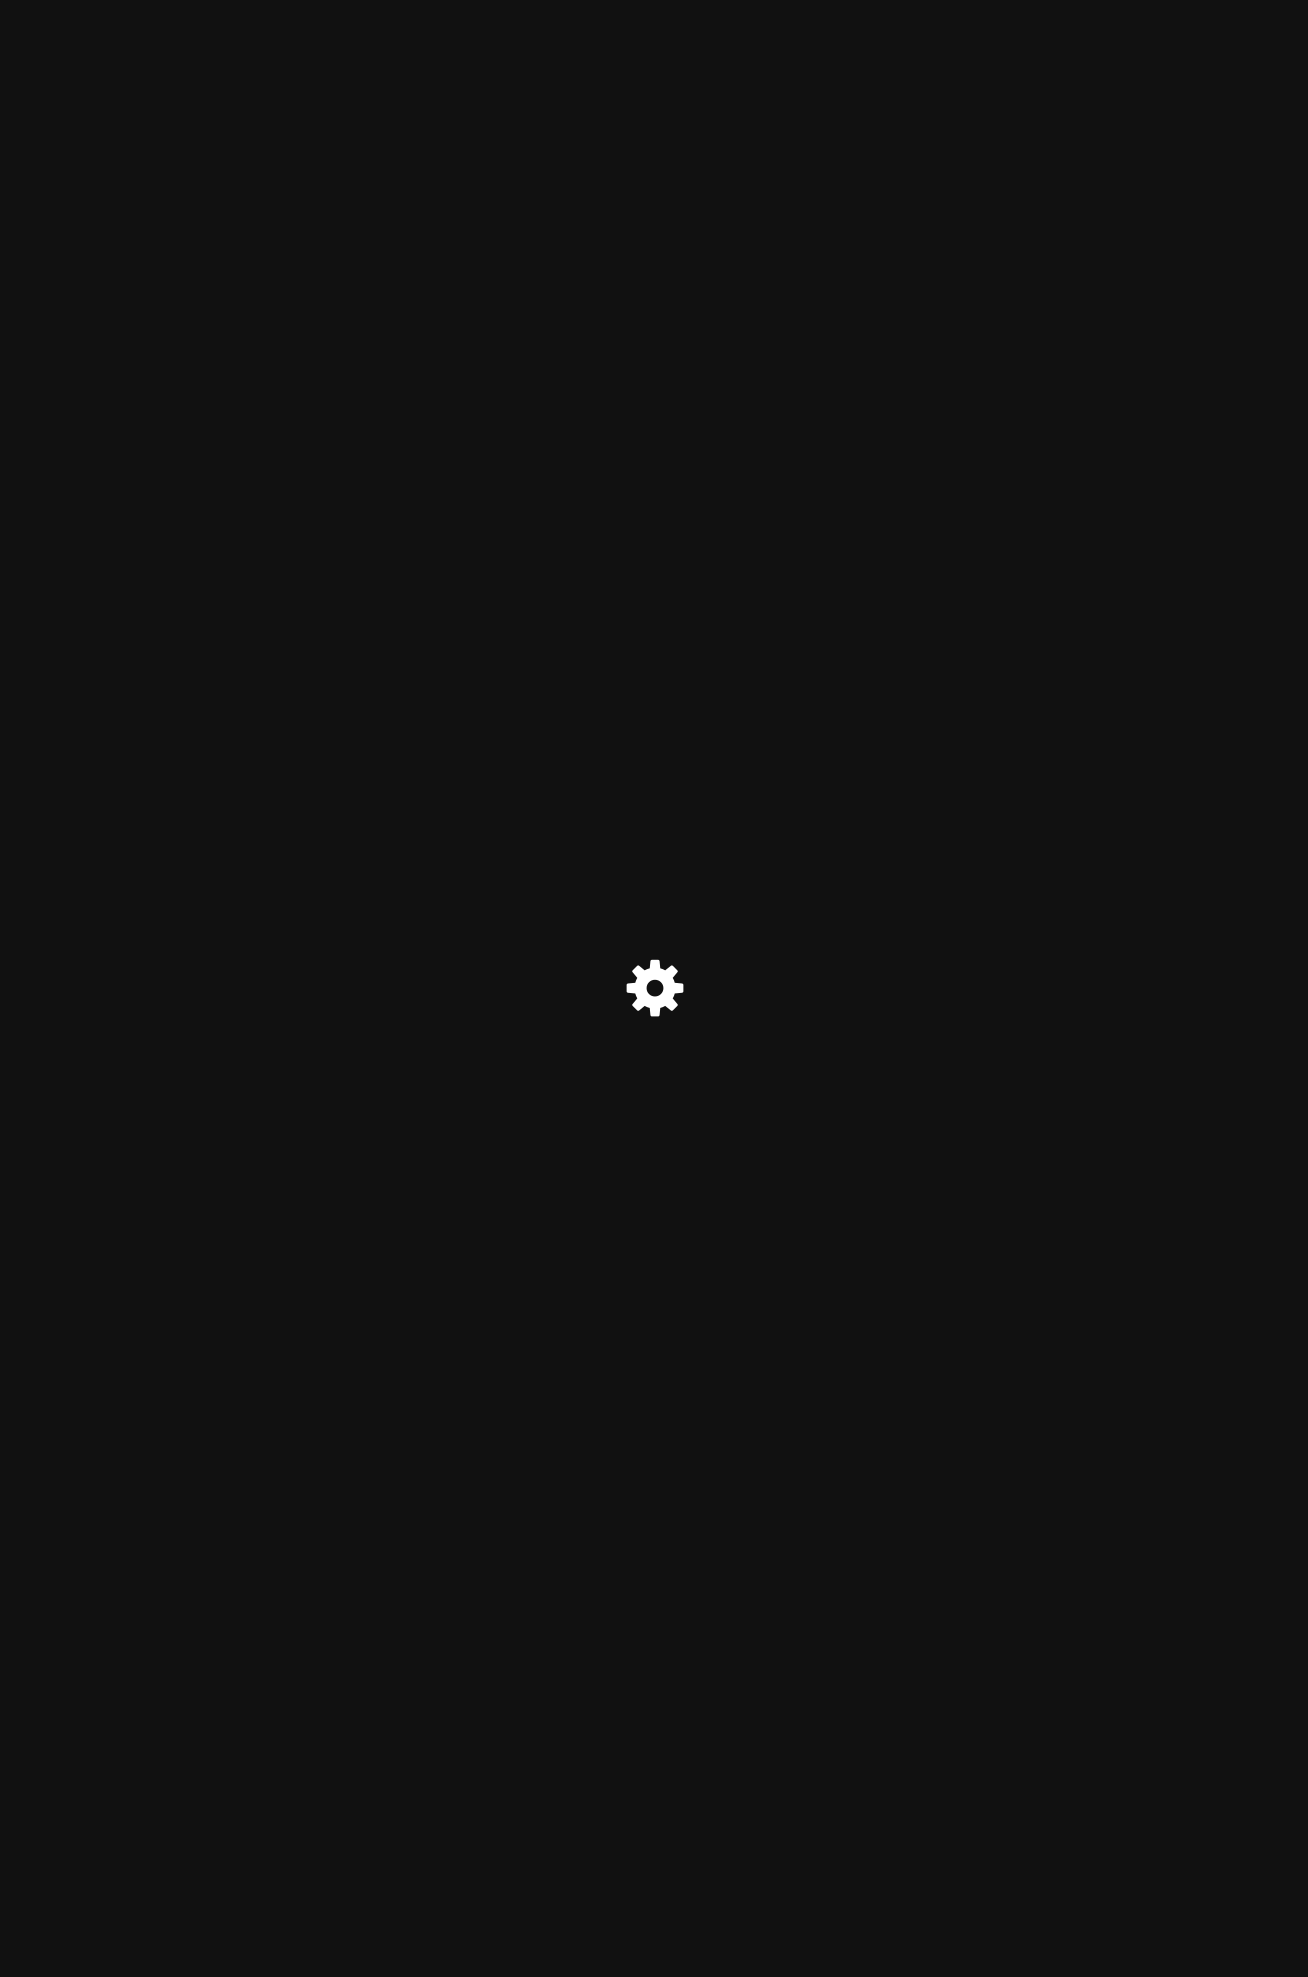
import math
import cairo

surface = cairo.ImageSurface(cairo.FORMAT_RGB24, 1308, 1977)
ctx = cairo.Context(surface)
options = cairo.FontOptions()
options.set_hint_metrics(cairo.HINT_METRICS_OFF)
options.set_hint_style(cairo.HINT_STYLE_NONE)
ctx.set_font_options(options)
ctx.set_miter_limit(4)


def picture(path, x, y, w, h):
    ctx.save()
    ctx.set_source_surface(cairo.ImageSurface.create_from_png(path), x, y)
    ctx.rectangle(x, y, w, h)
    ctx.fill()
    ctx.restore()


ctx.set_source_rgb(0.067, 0.067, 0.067)
ctx.paint()
picture("img1.png", 626, 959, 58, 58)
surface.write_to_png("page.png")
